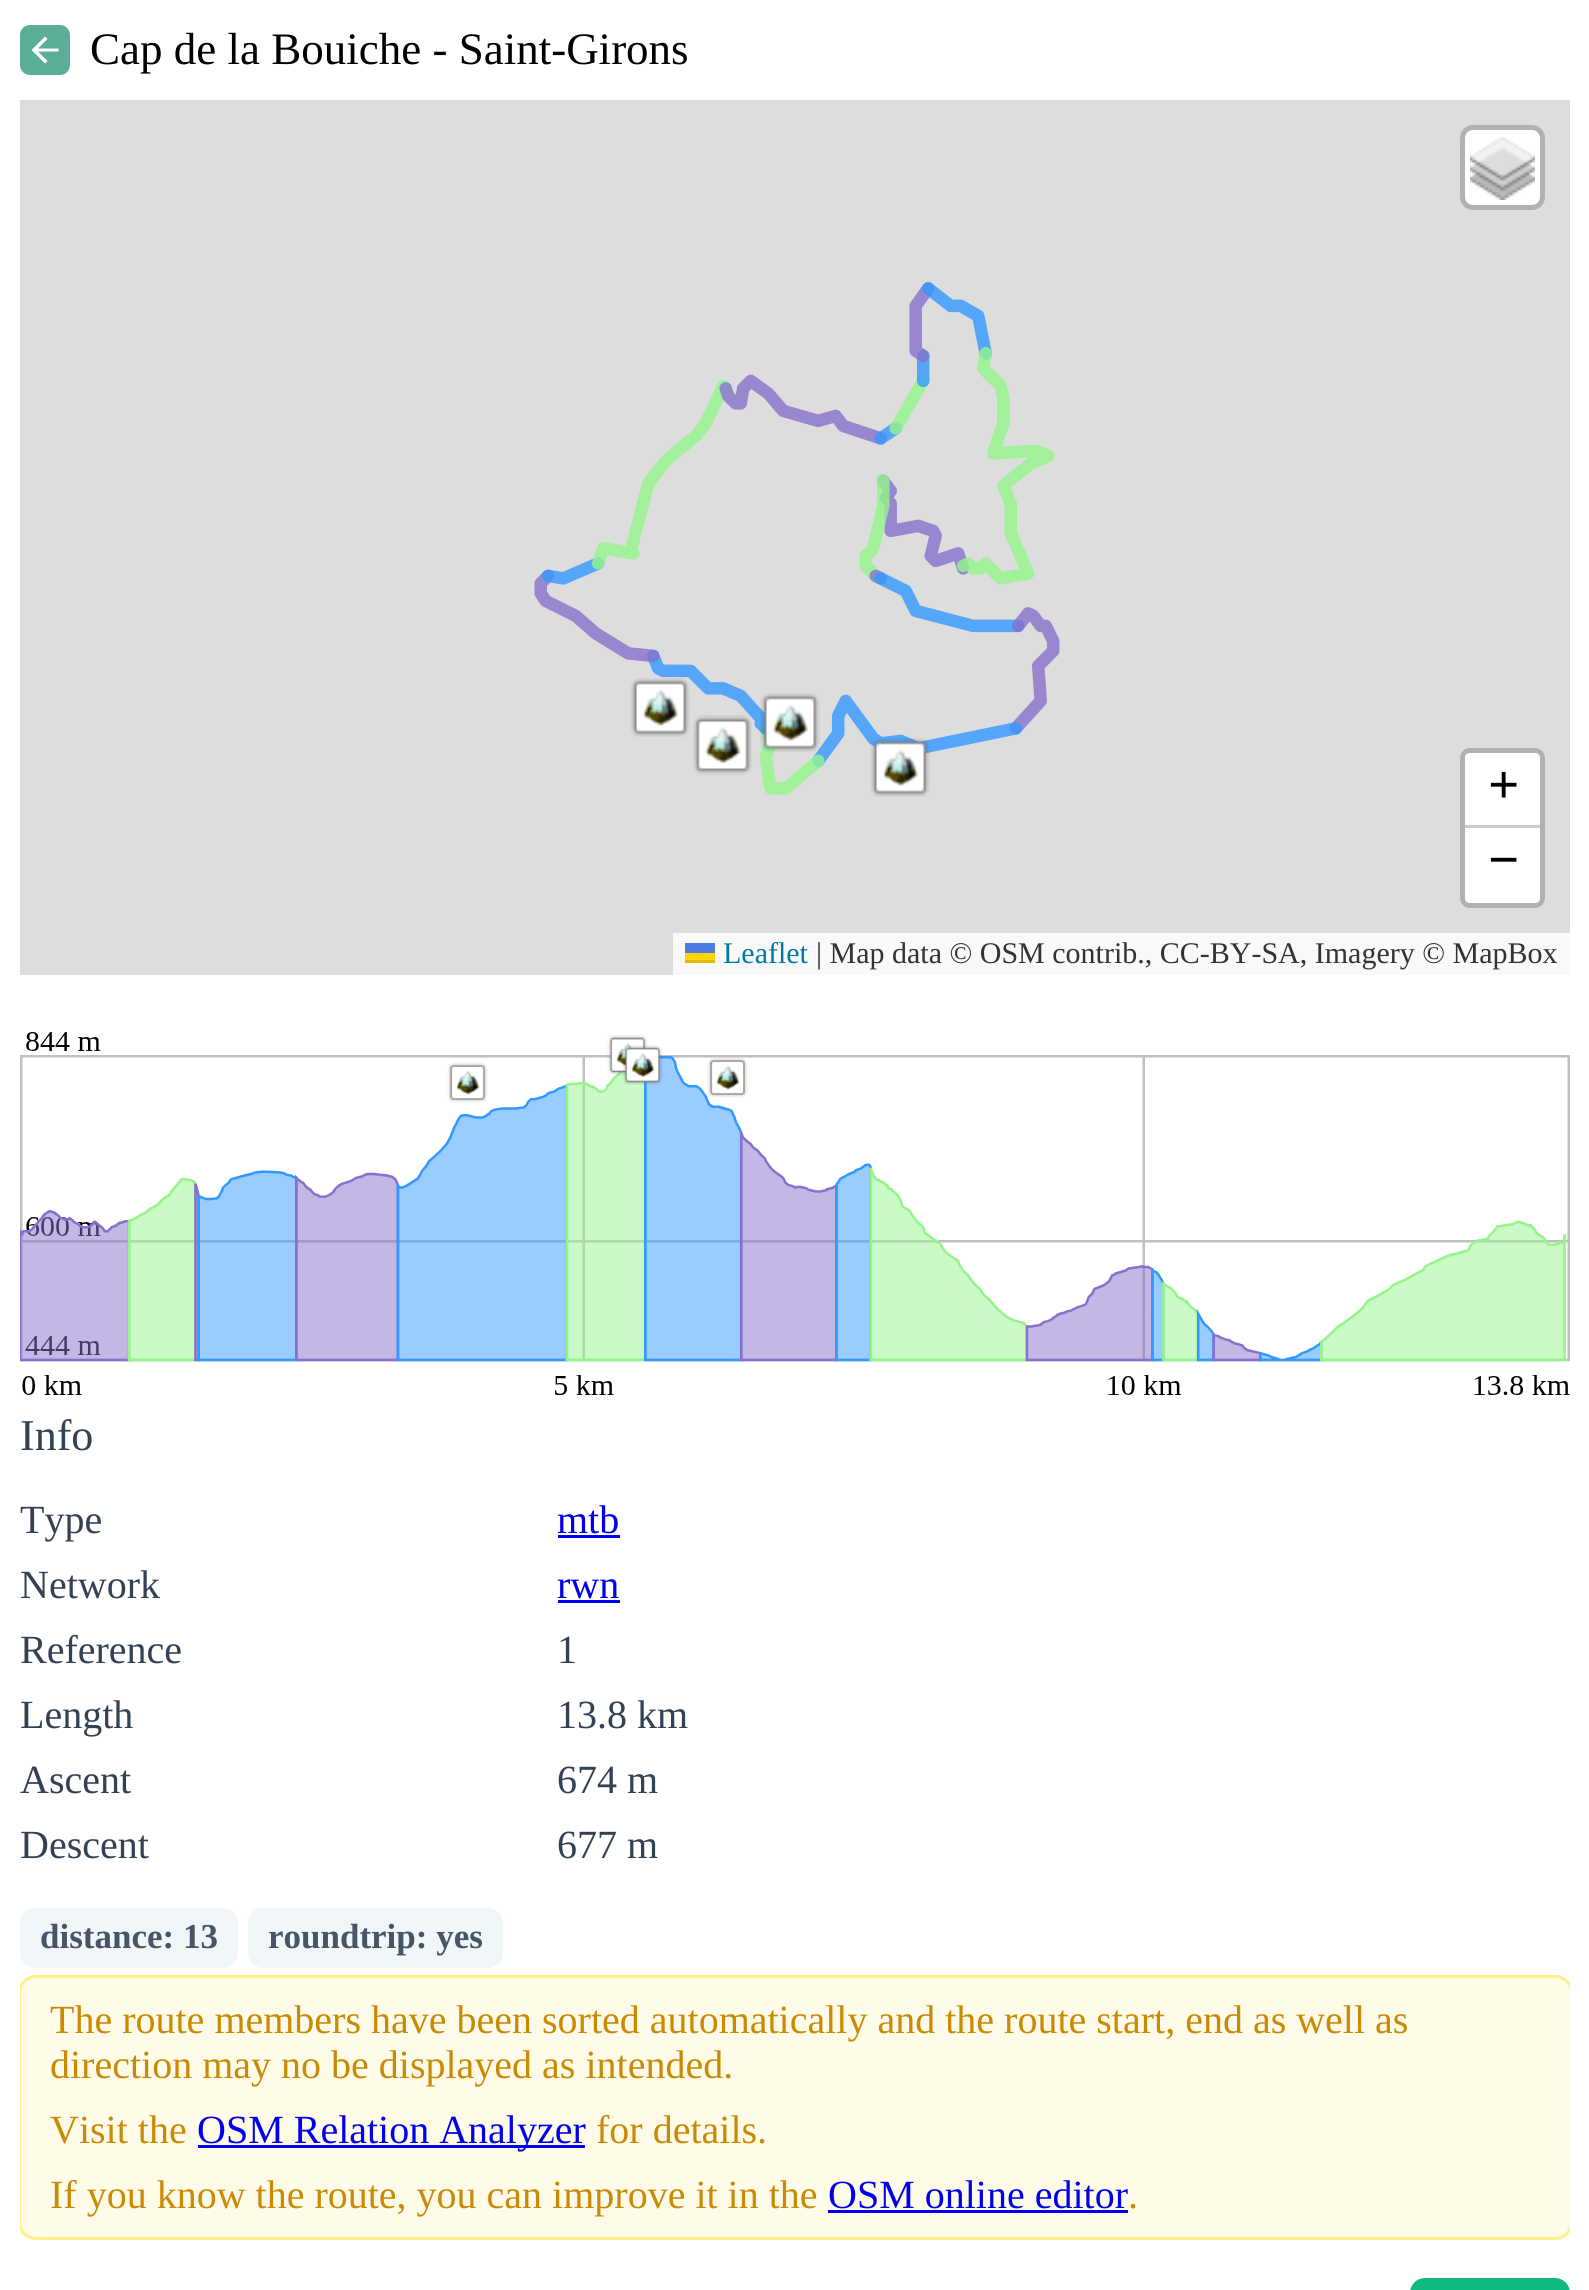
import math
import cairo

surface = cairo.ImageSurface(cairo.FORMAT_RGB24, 1589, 2290)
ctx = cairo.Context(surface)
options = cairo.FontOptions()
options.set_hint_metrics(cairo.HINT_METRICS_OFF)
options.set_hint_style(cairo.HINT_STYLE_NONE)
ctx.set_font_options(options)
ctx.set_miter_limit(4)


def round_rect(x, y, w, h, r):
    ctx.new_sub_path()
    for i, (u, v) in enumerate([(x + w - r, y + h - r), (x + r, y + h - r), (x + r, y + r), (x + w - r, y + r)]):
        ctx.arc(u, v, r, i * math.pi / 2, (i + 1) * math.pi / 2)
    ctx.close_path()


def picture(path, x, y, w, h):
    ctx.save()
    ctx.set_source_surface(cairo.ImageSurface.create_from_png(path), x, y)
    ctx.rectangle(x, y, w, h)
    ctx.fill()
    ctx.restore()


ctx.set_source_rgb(1, 1, 1)
ctx.paint()
ctx.set_source_rgb(0.353, 0.678, 0.592)
round_rect(20, 25, 50, 50, 10)
ctx.fill()
ctx.set_source_rgb(1, 1, 1)
ctx.new_path()
ctx.move_to(38, 51.5)
ctx.line_to(47.5, 61)
ctx.line_to(45, 63.5)
ctx.line_to(31.5, 50)
ctx.line_to(45, 36.5)
ctx.line_to(47.5, 39)
ctx.line_to(38, 48.5)
ctx.line_to(58.5, 48.5)
ctx.line_to(58.5, 51.5)
ctx.close_path()
ctx.fill()
ctx.select_font_face("Liberation Serif")
ctx.set_font_size(45)
ctx.set_source_rgb(0, 0, 0)
ctx.move_to(90, 64)
ctx.show_text("Cap de la Bouiche - Saint-Girons")
ctx.set_source_rgb(0.867, 0.867, 0.867)
ctx.rectangle(20, 100, 1550, 875)
ctx.fill()
picture("img1.png", 534, 282, 526, 513)
picture("img2.png", 630, 678, 60, 59)
picture("img3.png", 693, 715, 59, 60)
picture("img4.png", 760, 693, 60, 59)
picture("img5.png", 870, 738, 60, 59)
ctx.set_source_rgb(1, 1, 1)
round_rect(1465, 130, 75, 75, 8)
ctx.fill()
round_rect(1462.5, 127.5, 80, 80, 10.5)
ctx.set_source_rgba(0, 0, 0, 0.2)
ctx.set_line_width(5)
ctx.stroke()
picture("img6.png", 1470, 137, 65, 63)
round_rect(1462.5, 750.5, 80, 155, 7.5)
ctx.set_source_rgb(0.694, 0.694, 0.694)
ctx.stroke()
ctx.set_source_rgb(1, 1, 1)
ctx.new_path()
ctx.move_to(1470, 753)
ctx.line_to(1535, 753)
ctx.curve_to(1538, 753, 1540, 755, 1540, 758)
ctx.line_to(1540, 828)
ctx.line_to(1465, 828)
ctx.line_to(1465, 758)
ctx.curve_to(1465, 755, 1467, 753, 1470, 753)
ctx.close_path()
ctx.fill()
ctx.set_source_rgb(0.8, 0.8, 0.8)
ctx.rectangle(1465, 825, 75, 3)
ctx.fill()
ctx.select_font_face("Liberation Serif", cairo.FONT_SLANT_NORMAL, cairo.FONT_WEIGHT_BOLD)
ctx.set_font_size(55)
ctx.set_source_rgb(0, 0, 0)
ctx.move_to(1488, 803)
ctx.show_text("+")
ctx.set_source_rgb(1, 1, 1)
ctx.new_path()
ctx.move_to(1465, 828)
ctx.line_to(1540, 828)
ctx.line_to(1540, 898)
ctx.curve_to(1540, 901, 1538, 903, 1535, 903)
ctx.line_to(1470, 903)
ctx.curve_to(1467, 903, 1465, 901, 1465, 898)
ctx.close_path()
ctx.fill()
ctx.set_source_rgb(0, 0, 0)
ctx.move_to(1488, 878)
ctx.show_text("−")
ctx.set_source_rgb(0.973, 0.973, 0.973)
ctx.rectangle(673, 933, 897, 42)
ctx.fill()
ctx.select_font_face("Liberation Serif")
ctx.set_font_size(30)
ctx.set_source_rgb(0, 0.471, 0.659)
ctx.move_to(723, 963)
ctx.show_text("Leaflet")
ctx.set_source_rgb(0.298, 0.482, 0.882)
ctx.rectangle(685, 943, 30, 10)
ctx.fill()
ctx.set_source_rgb(1, 0.835, 0)
ctx.rectangle(685, 953, 30, 7)
ctx.fill()
ctx.set_source_rgb(0.878, 0.737, 0)
ctx.rectangle(685, 960, 30, 3)
ctx.fill()
ctx.set_source_rgb(0.2, 0.2, 0.2)
ctx.move_to(816, 963)
ctx.show_text("| Map data © OSM contrib., CC-BY-SA, Imagery © MapBox")
picture("img7.png", 20, 1032, 1550, 363)
ctx.set_font_size(44)
ctx.set_source_rgb(0.2, 0.255, 0.333)
ctx.move_to(20, 1450)
ctx.show_text("Info")
ctx.set_font_size(40)
ctx.move_to(20, 1533)
ctx.show_text("Type")
ctx.set_source_rgb(0, 0, 0.933)
ctx.move_to(557, 1533)
ctx.show_text("mtb")
ctx.rectangle(558, 1535, 62, 3)
ctx.fill()
ctx.set_source_rgb(0.2, 0.255, 0.333)
ctx.move_to(20, 1598)
ctx.show_text("Network")
ctx.set_source_rgb(0, 0, 0.933)
ctx.move_to(557, 1598)
ctx.show_text("rwn")
ctx.rectangle(558, 1600, 62, 3)
ctx.fill()
ctx.set_source_rgb(0.2, 0.255, 0.333)
ctx.move_to(20, 1663)
ctx.show_text("Reference")
ctx.move_to(557, 1663)
ctx.show_text("1")
ctx.move_to(20, 1728)
ctx.show_text("Length")
ctx.move_to(557, 1728)
ctx.show_text("13.8 km")
ctx.move_to(20, 1793)
ctx.show_text("Ascent")
ctx.move_to(557, 1793)
ctx.show_text("674 m")
ctx.move_to(20, 1858)
ctx.show_text("Descent")
ctx.move_to(557, 1858)
ctx.show_text("677 m")
ctx.set_source_rgb(0.945, 0.961, 0.976)
round_rect(20, 1908, 218, 60, 15)
ctx.fill()
ctx.select_font_face("Liberation Serif", cairo.FONT_SLANT_NORMAL, cairo.FONT_WEIGHT_BOLD)
ctx.set_font_size(35)
ctx.set_source_rgb(0.278, 0.333, 0.412)
ctx.move_to(40, 1948)
ctx.show_text("distance: 13")
ctx.set_source_rgb(0.945, 0.961, 0.976)
round_rect(248, 1908, 255, 60, 15)
ctx.fill()
ctx.set_source_rgb(0.278, 0.333, 0.412)
ctx.move_to(268, 1948)
ctx.show_text("roundtrip: yes")
ctx.set_source_rgba(0.996, 0.988, 0.91, 0.95)
round_rect(20, 1978, 1550, 260, 15)
ctx.fill()
ctx.set_source_rgb(0, 0, 0.933)
ctx.rectangle(198, 2145, 387, 3)
ctx.fill()
ctx.rectangle(828, 2210, 300, 3)
ctx.fill()
ctx.save()
ctx.rectangle(20, 1410, 1550, 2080)
ctx.clip()
round_rect(19.5, 1976.5, 1552, 262, 16.5)
ctx.set_source_rgb(0.996, 0.941, 0.541)
ctx.set_line_width(3)
ctx.stroke()
ctx.restore()
ctx.select_font_face("Liberation Serif")
ctx.set_font_size(40)
ctx.set_source_rgb(0.792, 0.541, 0.016)
ctx.move_to(50, 2033)
ctx.show_text("The route members have been sorted automatically and the route start, end as well as")
ctx.move_to(50, 2078)
ctx.show_text("direction may no be displayed as intended.")
ctx.move_to(50, 2143)
ctx.show_text("Visit the")
ctx.set_source_rgb(0, 0, 0.933)
ctx.move_to(197, 2143)
ctx.show_text("OSM Relation Analyzer")
ctx.set_source_rgb(0.792, 0.541, 0.016)
ctx.move_to(596, 2143)
ctx.show_text("for details.")
ctx.move_to(50, 2208)
ctx.show_text("If you know the route, you can improve it in the")
ctx.set_source_rgb(0, 0, 0.933)
ctx.move_to(828, 2208)
ctx.show_text("OSM online editor")
ctx.set_source_rgb(0.792, 0.541, 0.016)
ctx.move_to(1128, 2208)
ctx.show_text(".")
ctx.set_source_rgb(0.063, 0.725, 0.506)
round_rect(1411.5, 2279.5, 157, 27, 13.5)
ctx.fill_preserve()
ctx.set_line_width(3)
ctx.stroke()
surface.write_to_png("page.png")
